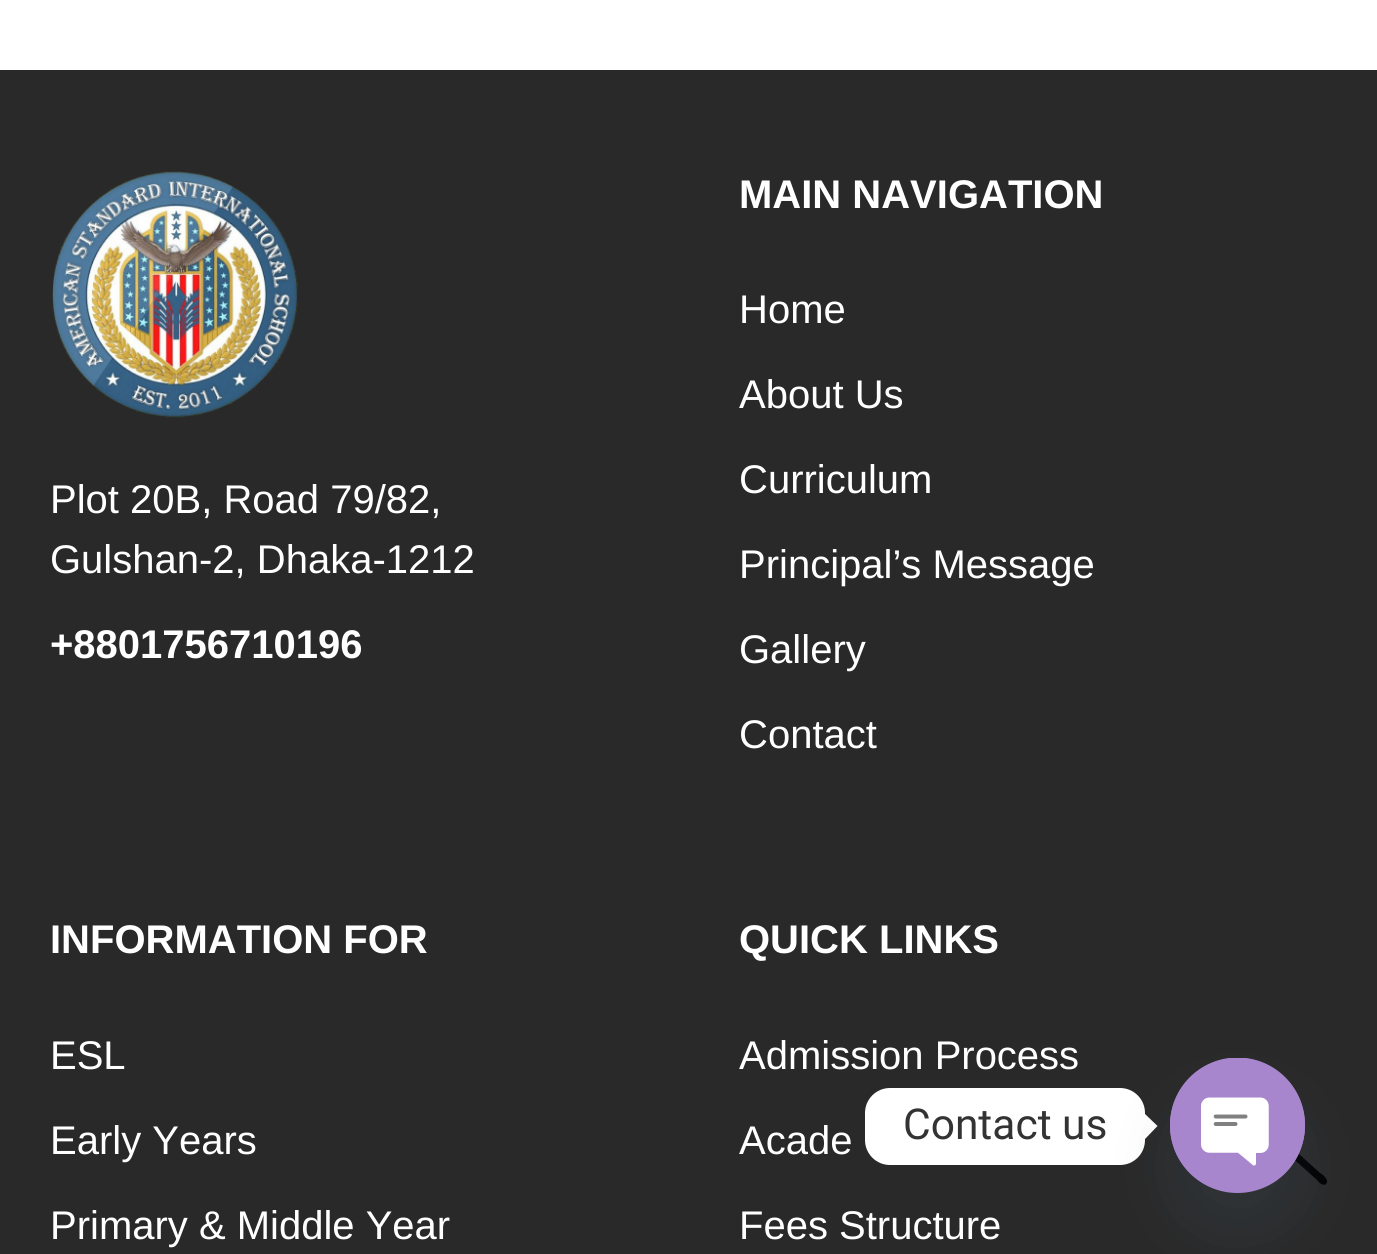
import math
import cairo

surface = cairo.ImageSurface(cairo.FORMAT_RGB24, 1377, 1254)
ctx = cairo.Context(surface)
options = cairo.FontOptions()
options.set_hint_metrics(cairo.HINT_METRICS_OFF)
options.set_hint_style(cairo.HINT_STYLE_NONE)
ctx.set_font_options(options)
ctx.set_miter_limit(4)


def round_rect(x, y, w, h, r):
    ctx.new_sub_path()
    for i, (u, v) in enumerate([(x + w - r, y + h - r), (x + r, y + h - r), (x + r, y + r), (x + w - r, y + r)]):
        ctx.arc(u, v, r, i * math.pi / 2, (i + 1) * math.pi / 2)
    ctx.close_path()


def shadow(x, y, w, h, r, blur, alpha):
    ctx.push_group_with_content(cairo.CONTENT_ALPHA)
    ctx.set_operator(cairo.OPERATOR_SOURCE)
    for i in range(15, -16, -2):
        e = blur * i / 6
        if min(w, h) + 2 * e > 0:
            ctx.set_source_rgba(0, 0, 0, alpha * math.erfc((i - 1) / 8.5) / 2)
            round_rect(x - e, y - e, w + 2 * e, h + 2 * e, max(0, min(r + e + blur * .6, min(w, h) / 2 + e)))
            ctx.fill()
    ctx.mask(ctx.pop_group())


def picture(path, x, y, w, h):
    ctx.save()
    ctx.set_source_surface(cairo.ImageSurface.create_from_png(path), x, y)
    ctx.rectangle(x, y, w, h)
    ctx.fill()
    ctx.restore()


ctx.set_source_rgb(1, 1, 1)
ctx.paint()
ctx.set_source_rgb(0.161, 0.161, 0.161)
ctx.rectangle(0, 70, 1377, 1184)
ctx.fill()
picture("img1.png", 52, 171, 246, 247)
ctx.select_font_face("Liberation Sans")
ctx.set_font_size(40)
ctx.set_source_rgb(1, 1, 1)
ctx.move_to(50, 513)
ctx.show_text("Plot 20B, Road 79/82,")
ctx.move_to(50, 573)
ctx.show_text("Gulshan-2, Dhaka-1212")
ctx.select_font_face("Liberation Sans", cairo.FONT_SLANT_NORMAL, cairo.FONT_WEIGHT_BOLD)
ctx.move_to(50, 658)
ctx.show_text("+8801756710196")
ctx.move_to(739, 208)
ctx.show_text("MAIN NAVIGATION")
ctx.select_font_face("Liberation Sans")
ctx.move_to(739, 323)
ctx.show_text("Home")
ctx.move_to(739, 408)
ctx.show_text("About Us")
ctx.move_to(739, 493)
ctx.show_text("Curriculum")
ctx.move_to(739, 578)
ctx.show_text("Principal’s Message")
ctx.move_to(739, 663)
ctx.show_text("Gallery")
ctx.move_to(739, 748)
ctx.show_text("Contact")
ctx.select_font_face("Liberation Sans", cairo.FONT_SLANT_NORMAL, cairo.FONT_WEIGHT_BOLD)
ctx.move_to(50, 953)
ctx.show_text("INFORMATION FOR")
ctx.select_font_face("Liberation Sans")
ctx.move_to(50, 1069)
ctx.show_text("ESL")
ctx.move_to(50, 1154)
ctx.show_text("Early Years")
ctx.move_to(50, 1239)
ctx.show_text("Primary & Middle Year")
ctx.select_font_face("Liberation Sans", cairo.FONT_SLANT_NORMAL, cairo.FONT_WEIGHT_BOLD)
ctx.move_to(739, 953)
ctx.show_text("QUICK LINKS")
ctx.select_font_face("Liberation Sans")
ctx.move_to(739, 1069)
ctx.show_text("Admission Process")
ctx.move_to(739, 1154)
ctx.show_text("Acade")
ctx.move_to(739, 1239)
ctx.show_text("Fees Structure")
round_rect(865, 1088, 280, 77, 25)
ctx.fill()
ctx.select_font_face("Roboto")
ctx.set_font_size(42.5)
ctx.set_source_rgb(0.2, 0.2, 0.2)
ctx.move_to(903, 1139)
ctx.show_text("Contact us")
ctx.set_source_rgb(1, 1, 1)
ctx.new_path()
ctx.move_to(1145, 1139)
ctx.line_to(1145, 1114)
ctx.line_to(1157.5, 1126)
ctx.close_path()
ctx.fill()
ctx.set_source_rgb(0, 0, 0)
ctx.new_path()
ctx.move_to(1285, 1146)
ctx.line_to(1249, 1178)
ctx.curve_to(1248, 1179, 1248, 1182, 1249, 1183)
ctx.curve_to(1250, 1185, 1252, 1185, 1254, 1184)
ctx.line_to(1288, 1154)
ctx.line_to(1316, 1179)
ctx.curve_to(1317, 1180, 1322, 1187, 1326, 1184)
ctx.curve_to(1330, 1180, 1322, 1174, 1320, 1173)
ctx.line_to(1289, 1145)
ctx.curve_to(1288, 1145, 1286, 1145, 1285, 1146)
ctx.close_path()
ctx.fill()
ctx.set_source_rgb(0.286, 0.408, 0.494)
shadow(1170, 1098, 135, 135, 67.5, 30, 0.16)
ctx.set_source_rgb(0.659, 0.525, 0.804)
ctx.arc(1237.5, 1125.5, 67.5, 0, 2 * math.pi)
ctx.fill()
picture("img2.png", 1170, 1058, 135, 125)
surface.write_to_png("page.png")
